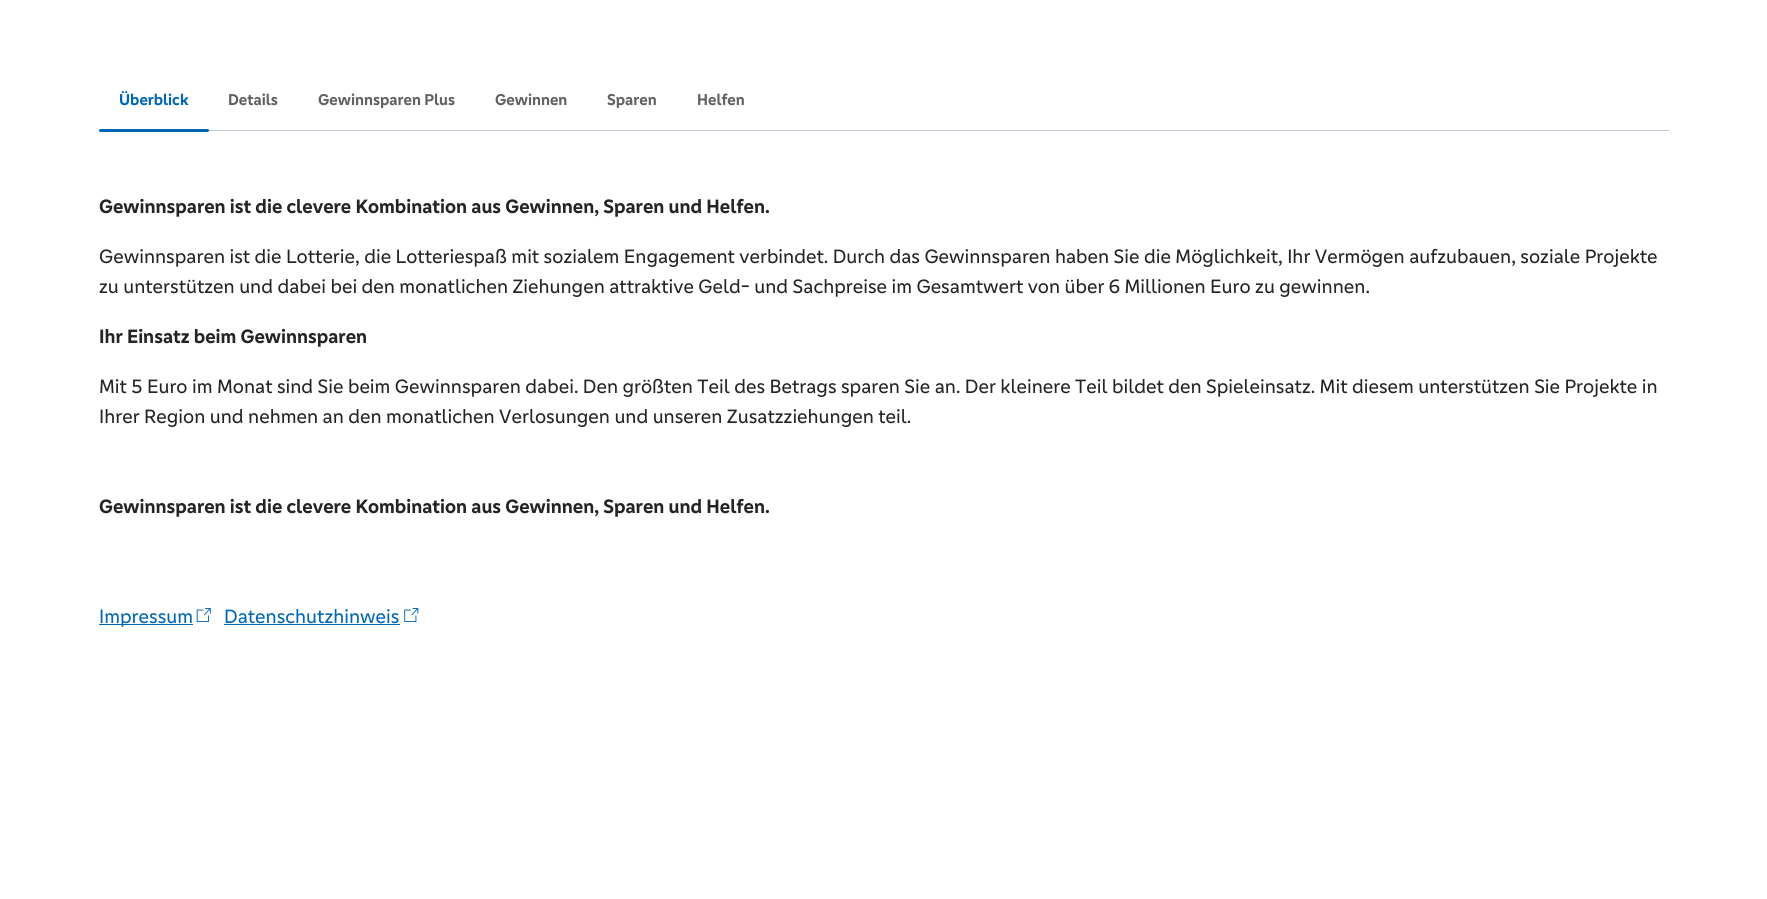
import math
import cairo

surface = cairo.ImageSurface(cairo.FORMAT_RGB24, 1767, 899)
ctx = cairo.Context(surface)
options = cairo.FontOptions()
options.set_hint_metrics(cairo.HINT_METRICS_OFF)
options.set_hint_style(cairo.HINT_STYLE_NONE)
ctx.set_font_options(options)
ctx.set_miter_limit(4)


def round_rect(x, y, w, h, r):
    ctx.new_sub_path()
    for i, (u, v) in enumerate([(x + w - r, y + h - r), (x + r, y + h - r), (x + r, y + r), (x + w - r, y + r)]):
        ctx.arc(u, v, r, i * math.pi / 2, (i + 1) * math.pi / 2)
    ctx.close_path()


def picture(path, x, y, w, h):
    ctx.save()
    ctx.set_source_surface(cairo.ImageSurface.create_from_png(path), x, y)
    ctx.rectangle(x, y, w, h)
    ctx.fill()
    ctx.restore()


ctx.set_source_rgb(1, 1, 1)
ctx.paint()
ctx.set_source_rgb(0.749, 0.792, 0.851)
ctx.rectangle(99, 130, 1570, 1)
ctx.fill()
ctx.select_font_face("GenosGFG", cairo.FONT_SLANT_NORMAL, cairo.FONT_WEIGHT_BOLD)
ctx.set_font_size(16.25)
ctx.set_source_rgb(0, 0.4, 0.702)
ctx.move_to(119, 105)
ctx.show_text("Überblick")
round_rect(99, 129, 110, 3, 1.5)
ctx.fill()
ctx.set_source_rgb(0.38, 0.38, 0.38)
ctx.move_to(228, 105)
ctx.show_text("Details")
ctx.move_to(318, 105)
ctx.show_text("Gewinnsparen Plus")
ctx.move_to(495, 105)
ctx.show_text("Gewinnen")
ctx.move_to(607, 105)
ctx.show_text("Sparen")
ctx.move_to(697, 105)
ctx.show_text("Helfen")
ctx.set_font_size(20)
ctx.set_source_rgb(0.141, 0.141, 0.141)
ctx.move_to(99, 213)
ctx.show_text("Gewinnsparen ist die clevere Kombination aus Gewinnen, Sparen und Helfen.")
ctx.select_font_face("GenosGFG")
ctx.move_to(99, 263)
ctx.show_text("Gewinnsparen ist die Lotterie, die Lotteriespaß mit sozialem Engagement verbindet. Durch das Gewinnsparen haben Sie die Möglichkeit, Ihr Vermögen aufzubauen, soziale Projekte")
ctx.move_to(99, 293)
ctx.show_text("zu unterstützen und dabei bei den monatlichen Ziehungen attraktive Geld- und Sachpreise im Gesamtwert von über 6 Millionen Euro zu gewinnen.")
ctx.select_font_face("GenosGFG", cairo.FONT_SLANT_NORMAL, cairo.FONT_WEIGHT_BOLD)
ctx.move_to(99, 343)
ctx.show_text("Ihr Einsatz beim Gewinnsparen")
ctx.select_font_face("GenosGFG")
ctx.move_to(99, 393)
ctx.show_text("Mit 5 Euro im Monat sind Sie beim Gewinnsparen dabei. Den größten Teil des Betrags sparen Sie an. Der kleinere Teil bildet den Spieleinsatz. Mit diesem unterstützen Sie Projekte in")
ctx.move_to(99, 423)
ctx.show_text("Ihrer Region und nehmen an den monatlichen Verlosungen und unseren Zusatzziehungen teil.")
ctx.select_font_face("GenosGFG", cairo.FONT_SLANT_NORMAL, cairo.FONT_WEIGHT_BOLD)
ctx.move_to(99, 513)
ctx.show_text("Gewinnsparen ist die clevere Kombination aus Gewinnen, Sparen und Helfen.")
ctx.set_source_rgb(0, 0.4, 0.702)
ctx.rectangle(99, 624, 94, 1)
ctx.fill()
ctx.select_font_face("GenosGFG")
ctx.move_to(99, 623)
ctx.show_text("Impressum")
picture("img1.png", 196, 608, 15, 15)
ctx.move_to(224, 623)
ctx.show_text("Datenschutzhinweis")
ctx.rectangle(224, 624, 176, 1)
ctx.fill()
picture("img2.png", 404, 608, 15, 15)
surface.write_to_png("page.png")
